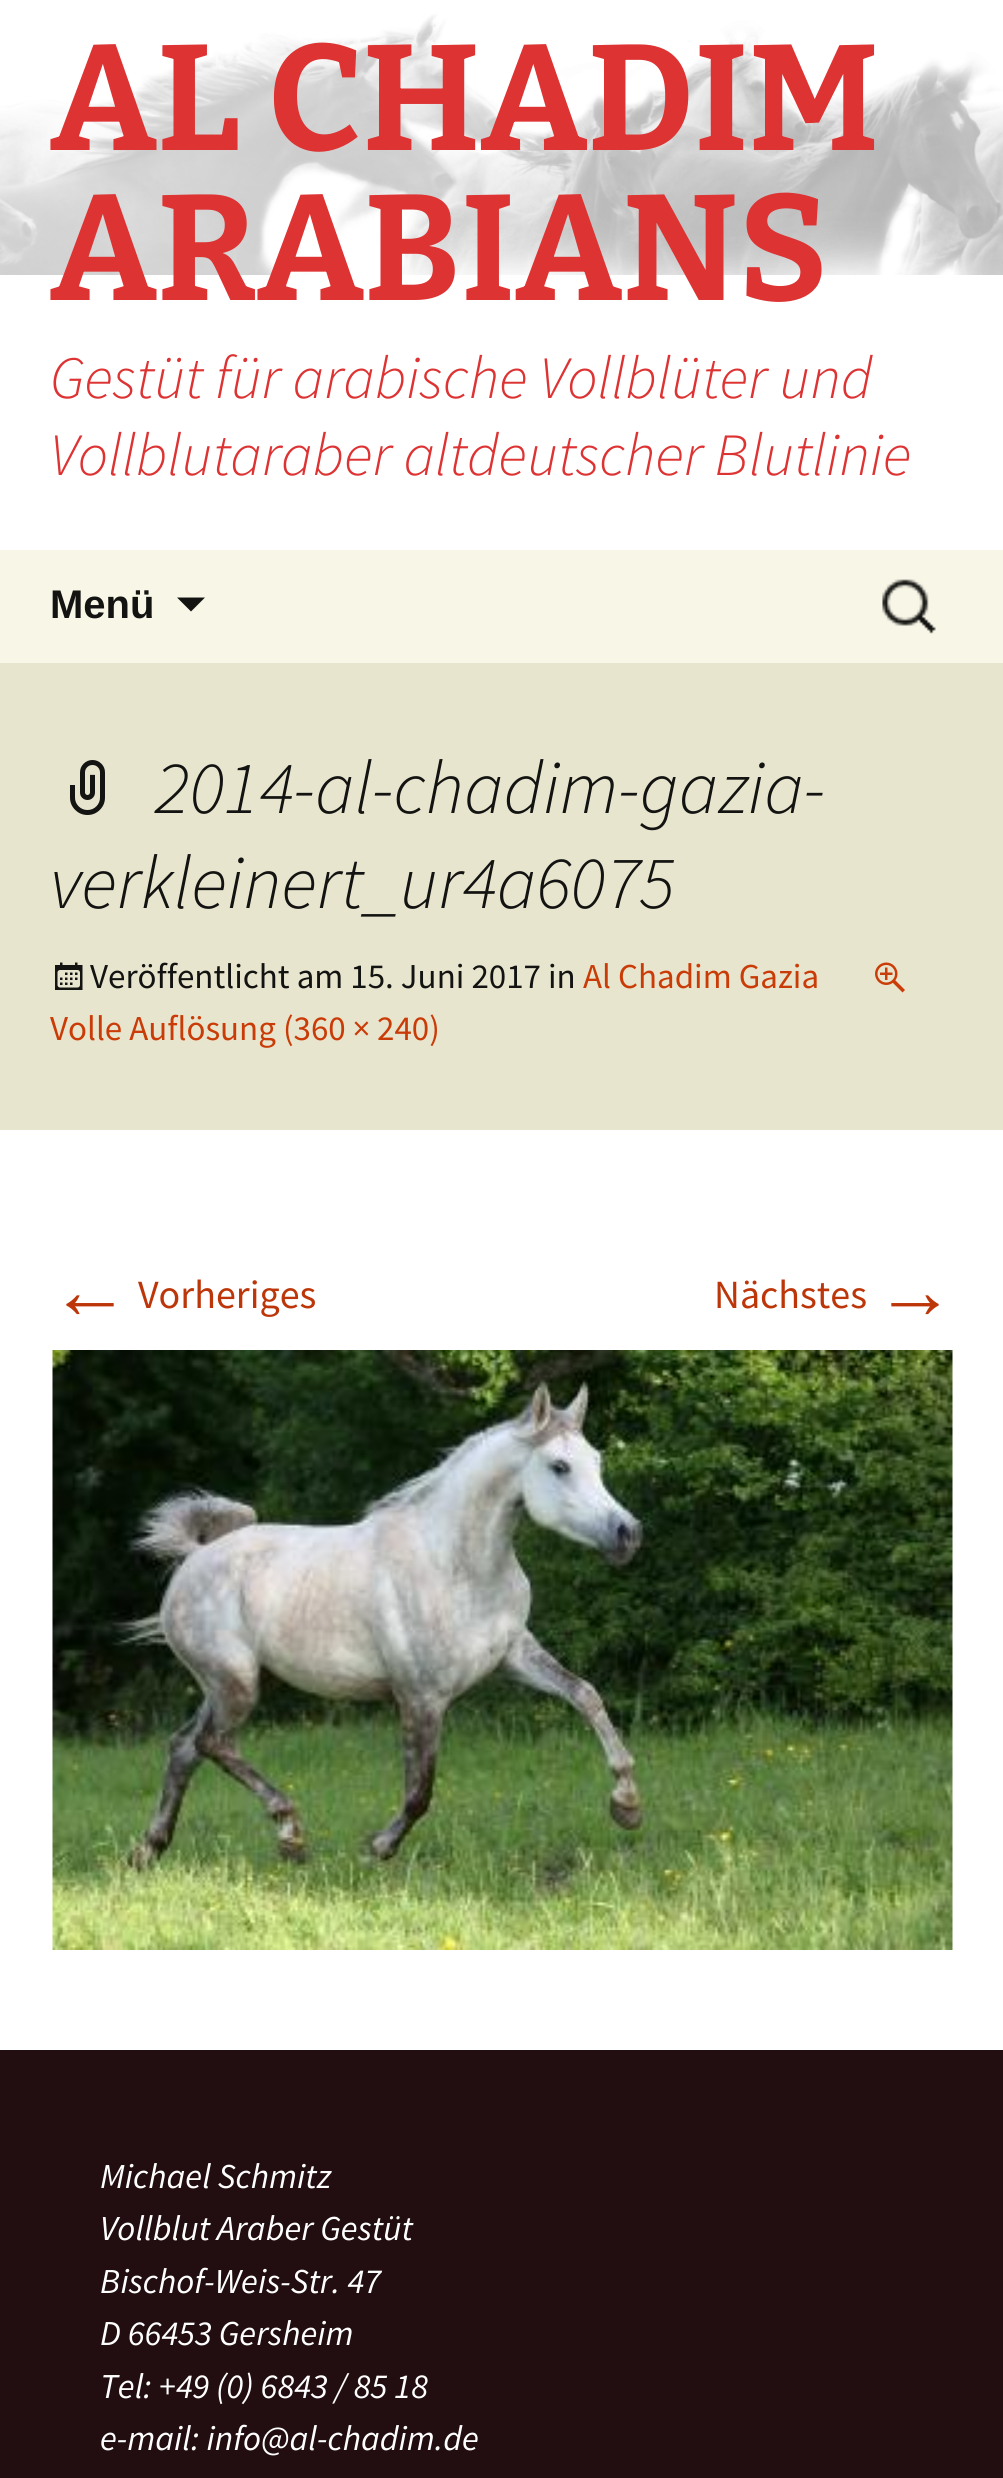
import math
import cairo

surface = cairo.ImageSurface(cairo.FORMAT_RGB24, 1003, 2478)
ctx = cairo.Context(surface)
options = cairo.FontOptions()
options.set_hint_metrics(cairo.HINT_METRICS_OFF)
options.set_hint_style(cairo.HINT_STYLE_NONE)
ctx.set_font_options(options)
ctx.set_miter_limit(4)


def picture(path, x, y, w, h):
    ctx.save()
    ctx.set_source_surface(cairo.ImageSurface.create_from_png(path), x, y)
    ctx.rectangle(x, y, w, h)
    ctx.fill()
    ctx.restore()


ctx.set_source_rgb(1, 1, 1)
ctx.paint()
picture("img1.png", 0, 14, 1003, 261)
ctx.select_font_face("Bitter Thin")
ctx.set_font_size(150)
ctx.set_source_rgb(0.867, 0.2, 0.2)
ctx.move_to(50, 150)
ctx.show_text("AL CHADIM")
ctx.move_to(50, 300)
ctx.show_text("ARABIANS")
ctx.select_font_face("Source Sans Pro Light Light", cairo.FONT_SLANT_ITALIC)
ctx.set_font_size(60)
ctx.move_to(50, 398)
ctx.show_text("Gestüt für arabische Vollblüter und")
ctx.move_to(50, 475)
ctx.show_text("Vollblutaraber altdeutscher Blutlinie")
ctx.set_source_rgb(0.969, 0.961, 0.906)
ctx.rectangle(0, 550, 1003, 113)
ctx.fill()
ctx.select_font_face("Liberation Sans", cairo.FONT_SLANT_NORMAL, cairo.FONT_WEIGHT_BOLD)
ctx.set_font_size(40)
ctx.set_source_rgb(0.078, 0.078, 0.071)
ctx.move_to(50, 618)
ctx.show_text("Menü")
ctx.new_path()
ctx.move_to(177, 597.5)
ctx.line_to(191, 611.5)
ctx.line_to(205, 597.5)
ctx.close_path()
ctx.fill()
picture("img2.png", 882, 579, 54, 55)
ctx.set_source_rgb(0.91, 0.898, 0.808)
ctx.rectangle(0, 663, 1003, 467)
ctx.fill()
picture("img3.png", 70, 760, 35, 55)
ctx.select_font_face("Source Sans Pro Light Light", cairo.FONT_SLANT_ITALIC)
ctx.set_font_size(75)
ctx.set_source_rgb(0.078, 0.078, 0.071)
ctx.move_to(155, 813)
ctx.show_text("2014-al-chadim-gazia-")
ctx.move_to(50, 908)
ctx.show_text("verkleinert_ur4a6075")
picture("img4.png", 55, 962, 28, 28)
ctx.select_font_face("Source Sans Pro")
ctx.set_font_size(35)
ctx.move_to(90, 988)
ctx.show_text("Veröffentlicht am 15. Juni 2017 in")
ctx.set_source_rgb(0.792, 0.235, 0.031)
ctx.move_to(583, 988)
ctx.show_text("Al Chadim Gazia")
picture("img5.png", 875, 962, 30, 31)
ctx.move_to(50, 1040)
ctx.show_text("Volle Auflösung (360 × 240)")
ctx.select_font_face("Liberation Sans")
ctx.set_font_size(80)
ctx.set_source_rgb(0.737, 0.212, 0.039)
ctx.move_to(50, 1318)
ctx.show_text("←")
ctx.select_font_face("Source Sans Pro")
ctx.set_font_size(40)
ctx.move_to(138, 1308)
ctx.show_text("Vorheriges")
ctx.move_to(714, 1308)
ctx.show_text("Nächstes")
ctx.select_font_face("Liberation Sans")
ctx.set_font_size(80)
ctx.move_to(875, 1318)
ctx.show_text("→")
picture("img6.png", 52, 1350, 901, 600)
ctx.set_source_rgb(0.133, 0.055, 0.063)
ctx.rectangle(0, 2050, 1003, 428)
ctx.fill()
ctx.select_font_face("Source Sans Pro", cairo.FONT_SLANT_ITALIC)
ctx.set_font_size(35)
ctx.set_source_rgb(1, 1, 1)
ctx.move_to(100, 2188)
ctx.show_text("Michael Schmitz")
ctx.move_to(100, 2240)
ctx.show_text("Vollblut Araber Gestüt")
ctx.move_to(100, 2293)
ctx.show_text("Bischof-Weis-Str. 47")
ctx.move_to(100, 2345)
ctx.show_text("D 66453 Gersheim")
ctx.move_to(100, 2398)
ctx.show_text("Tel: +49 (0) 6843 / 85 18")
ctx.move_to(100, 2450)
ctx.show_text("e-mail: info@al-chadim.de")
surface.write_to_png("page.png")
